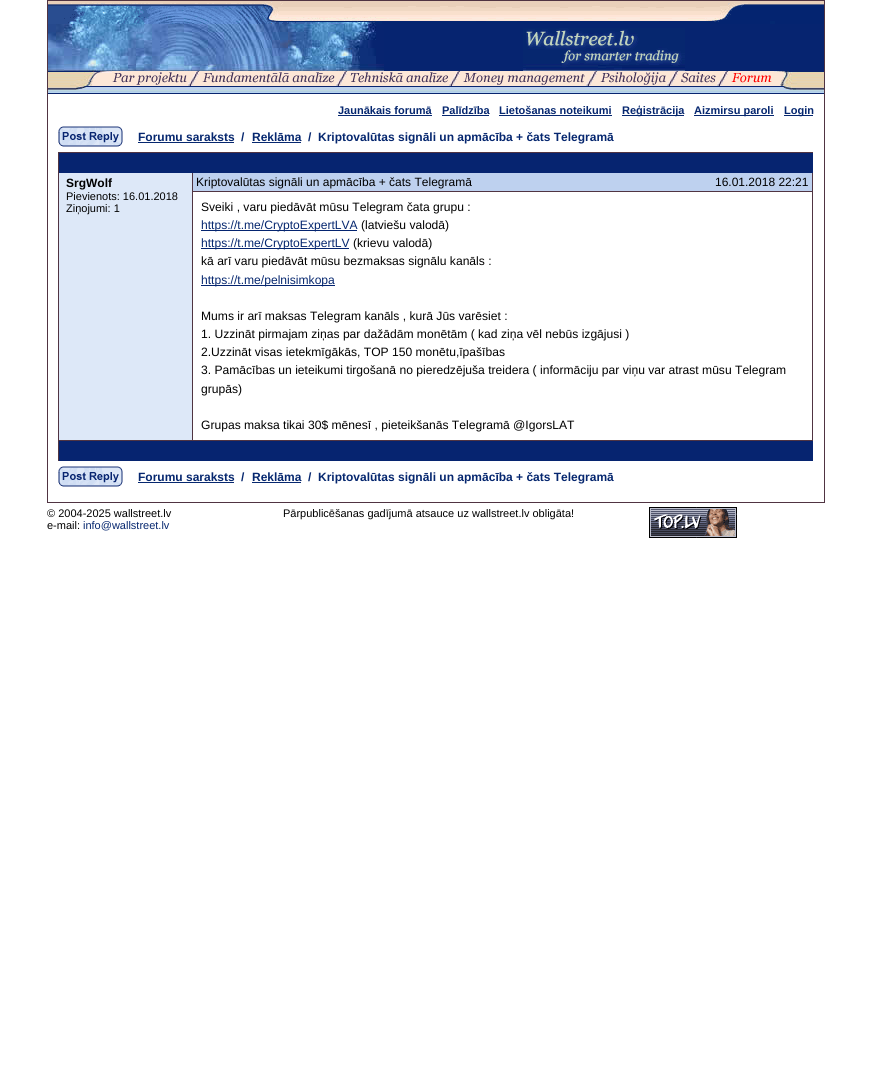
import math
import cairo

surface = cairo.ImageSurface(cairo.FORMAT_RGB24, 871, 1065)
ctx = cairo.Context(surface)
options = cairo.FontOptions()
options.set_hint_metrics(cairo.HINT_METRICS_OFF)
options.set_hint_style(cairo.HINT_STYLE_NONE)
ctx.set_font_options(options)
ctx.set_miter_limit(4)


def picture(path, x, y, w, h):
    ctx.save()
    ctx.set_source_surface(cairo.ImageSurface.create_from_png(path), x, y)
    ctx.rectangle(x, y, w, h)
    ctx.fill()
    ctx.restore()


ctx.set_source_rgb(1, 1, 1)
ctx.paint()
ctx.set_source_rgb(0.314, 0.204, 0.259)
ctx.rectangle(47, 0, 778, 503)
ctx.fill()
ctx.set_source_rgb(1, 1, 1)
ctx.rectangle(48, 94, 776, 408)
ctx.fill()
picture("img1.png", 48, 1, 776, 23)
picture("img2.png", 48, 24, 336, 47)
ctx.set_source_rgb(0.027, 0.141, 0.439)
ctx.rectangle(384, 24, 440, 47)
ctx.fill()
picture("img3.png", 523, 28, 162, 43)
ctx.set_source_rgb(0.992, 0.906, 0.843)
ctx.rectangle(112, 71, 662, 15)
ctx.fill()
picture("img4.png", 48, 71, 64, 23)
picture("img5.png", 70, 71, 42, 19)
picture("img6.png", 112, 72, 75, 13)
picture("img7.png", 188, 71, 12, 15)
picture("img8.png", 202, 72, 133, 11)
picture("img7.png", 336, 71, 12, 15)
picture("img9.png", 350, 72, 98, 11)
picture("img7.png", 449, 71, 12, 15)
picture("img10.png", 463, 73, 122, 12)
picture("img7.png", 586, 71, 12, 15)
picture("img11.png", 600, 72, 66, 13)
picture("img7.png", 667, 71, 12, 15)
picture("img12.png", 681, 72, 35, 11)
picture("img7.png", 717, 71, 12, 15)
picture("img13.png", 731, 73, 41, 10)
picture("img14.png", 112, 86, 662, 8)
picture("img15.png", 774, 71, 50, 23)
picture("img16.png", 774, 71, 23, 19)
ctx.select_font_face("Liberation Sans", cairo.FONT_SLANT_NORMAL, cairo.FONT_WEIGHT_BOLD)
ctx.set_font_size(11)
ctx.set_source_rgb(0.024, 0.153, 0.435)
ctx.move_to(338, 114)
ctx.show_text("Jaunākais forumā")
ctx.rectangle(338, 115, 94, 1)
ctx.fill()
ctx.move_to(442, 114)
ctx.show_text("Palīdzība")
ctx.rectangle(442, 115, 47, 1)
ctx.fill()
ctx.move_to(499, 114)
ctx.show_text("Lietošanas noteikumi")
ctx.rectangle(499, 115, 113, 1)
ctx.fill()
ctx.rectangle(622, 115, 62, 1)
ctx.fill()
ctx.move_to(622, 114)
ctx.show_text("Reģistrācija")
ctx.rectangle(694, 115, 80, 1)
ctx.fill()
ctx.move_to(694, 114)
ctx.show_text("Aizmirsu paroli")
ctx.rectangle(784, 115, 29, 1)
ctx.fill()
ctx.move_to(784, 114)
ctx.show_text("Login")
picture("img17.png", 58, 126, 65, 21)
ctx.set_font_size(12)
ctx.move_to(138, 141)
ctx.show_text("Forumu saraksts")
ctx.rectangle(138, 142, 96, 1)
ctx.fill()
ctx.move_to(241, 141)
ctx.show_text("/")
ctx.move_to(252, 141)
ctx.show_text("Reklāma")
ctx.rectangle(252, 142, 49, 1)
ctx.fill()
ctx.move_to(308, 141)
ctx.show_text("/")
ctx.move_to(318, 141)
ctx.show_text("Kriptovalūtas signāli un apmācība + čats Telegramā")
ctx.set_source_rgb(0.314, 0.204, 0.259)
ctx.rectangle(58, 152, 755, 1)
ctx.fill()
ctx.rectangle(58, 152, 1, 309)
ctx.fill()
ctx.set_source_rgb(0.027, 0.141, 0.439)
ctx.rectangle(59, 153, 754, 20)
ctx.fill()
ctx.set_source_rgb(0.867, 0.91, 0.969)
ctx.rectangle(59, 173, 133, 267)
ctx.fill()
ctx.set_source_rgb(0.314, 0.204, 0.259)
ctx.rectangle(192, 173, 1, 268)
ctx.fill()
ctx.rectangle(59, 440, 134, 1)
ctx.fill()
ctx.set_source_rgb(0, 0, 0)
ctx.move_to(66, 187)
ctx.show_text("SrgWolf")
ctx.select_font_face("Liberation Sans")
ctx.set_font_size(11)
ctx.move_to(66, 200)
ctx.show_text("Pievienots: 16.01.2018")
ctx.move_to(66, 212)
ctx.show_text("Ziņojumi: 1")
ctx.set_source_rgb(0.745, 0.82, 0.937)
ctx.rectangle(193, 173, 619, 18)
ctx.fill()
ctx.set_source_rgb(0.314, 0.204, 0.259)
ctx.rectangle(812, 173, 1, 268)
ctx.fill()
ctx.rectangle(193, 191, 620, 1)
ctx.fill()
ctx.set_font_size(12)
ctx.set_source_rgb(0, 0, 0)
ctx.move_to(196, 186)
ctx.show_text("Kriptovalūtas signāli un apmācība + čats Telegramā")
ctx.move_to(715, 186)
ctx.show_text("16.01.2018 22:21")
ctx.set_source_rgb(0.314, 0.204, 0.259)
ctx.rectangle(193, 440, 620, 1)
ctx.fill()
ctx.set_font_size(12.1)
ctx.set_source_rgb(0, 0, 0)
ctx.move_to(201, 211)
ctx.show_text("Sveiki , varu piedāvāt mūsu Telegram čata grupu :")
ctx.set_source_rgb(0.016, 0.141, 0.439)
ctx.rectangle(201, 230, 156, 1)
ctx.fill()
ctx.set_source_rgb(0.024, 0.153, 0.435)
ctx.move_to(201, 229)
ctx.show_text("https://t.me/CryptoExpertLVA")
ctx.set_source_rgb(0, 0, 0)
ctx.move_to(361, 229)
ctx.show_text("(latviešu valodā)")
ctx.set_source_rgb(0.016, 0.141, 0.439)
ctx.rectangle(201, 248, 148, 1)
ctx.fill()
ctx.set_source_rgb(0.024, 0.153, 0.435)
ctx.move_to(201, 247)
ctx.show_text("https://t.me/CryptoExpertLV")
ctx.set_source_rgb(0, 0, 0)
ctx.move_to(353, 247)
ctx.show_text("(krievu valodā)")
ctx.move_to(201, 265)
ctx.show_text("kā arī varu piedāvāt mūsu bezmaksas signālu kanāls :")
ctx.set_source_rgb(0.016, 0.141, 0.439)
ctx.rectangle(201, 285, 134, 1)
ctx.fill()
ctx.set_source_rgb(0.024, 0.153, 0.435)
ctx.move_to(201, 284)
ctx.show_text("https://t.me/pelnisimkopa")
ctx.set_source_rgb(0, 0, 0)
ctx.move_to(201, 320)
ctx.show_text("Mums ir arī maksas Telegram kanāls , kurā Jūs varēsiet :")
ctx.move_to(201, 338)
ctx.show_text("1. Uzzināt pirmajam ziņas par dažādām monētām ( kad ziņa vēl nebūs izgājusi )")
ctx.move_to(201, 356)
ctx.show_text("2.Uzzināt visas ietekmīgākās, TOP 150 monētu,īpašības")
ctx.move_to(201, 374)
ctx.show_text("3. Pamācības un ieteikumi tirgošanā no pieredzējuša treidera ( informāciju par viņu var atrast mūsu Telegram")
ctx.move_to(201, 393)
ctx.show_text("grupās)")
ctx.move_to(201, 429)
ctx.show_text("Grupas maksa tikai 30$ mēnesī , pieteikšanās Telegramā @IgorsLAT")
ctx.set_source_rgb(0.027, 0.141, 0.439)
ctx.rectangle(59, 441, 754, 20)
ctx.fill()
picture("img17.png", 58, 466, 65, 21)
ctx.select_font_face("Liberation Sans", cairo.FONT_SLANT_NORMAL, cairo.FONT_WEIGHT_BOLD)
ctx.set_font_size(12)
ctx.set_source_rgb(0.024, 0.153, 0.435)
ctx.move_to(138, 481)
ctx.show_text("Forumu saraksts")
ctx.rectangle(138, 482, 96, 1)
ctx.fill()
ctx.move_to(241, 481)
ctx.show_text("/")
ctx.move_to(252, 481)
ctx.show_text("Reklāma")
ctx.rectangle(252, 482, 49, 1)
ctx.fill()
ctx.move_to(308, 481)
ctx.show_text("/")
ctx.move_to(318, 481)
ctx.show_text("Kriptovalūtas signāli un apmācība + čats Telegramā")
ctx.select_font_face("Liberation Sans")
ctx.set_font_size(11)
ctx.set_source_rgb(0, 0, 0)
ctx.move_to(47, 517)
ctx.show_text("© 2004-2025 wallstreet.lv")
ctx.move_to(47, 529)
ctx.show_text("e-mail:")
ctx.set_source_rgb(0.024, 0.153, 0.435)
ctx.move_to(83, 529)
ctx.show_text("info@wallstreet.lv")
ctx.set_source_rgb(0, 0, 0)
ctx.move_to(283, 517)
ctx.show_text("Pārpublicēšanas gadījumā atsauce uz wallstreet.lv obligāta!")
picture("img18.png", 649, 507, 88, 31)
surface.write_to_png("page.png")
